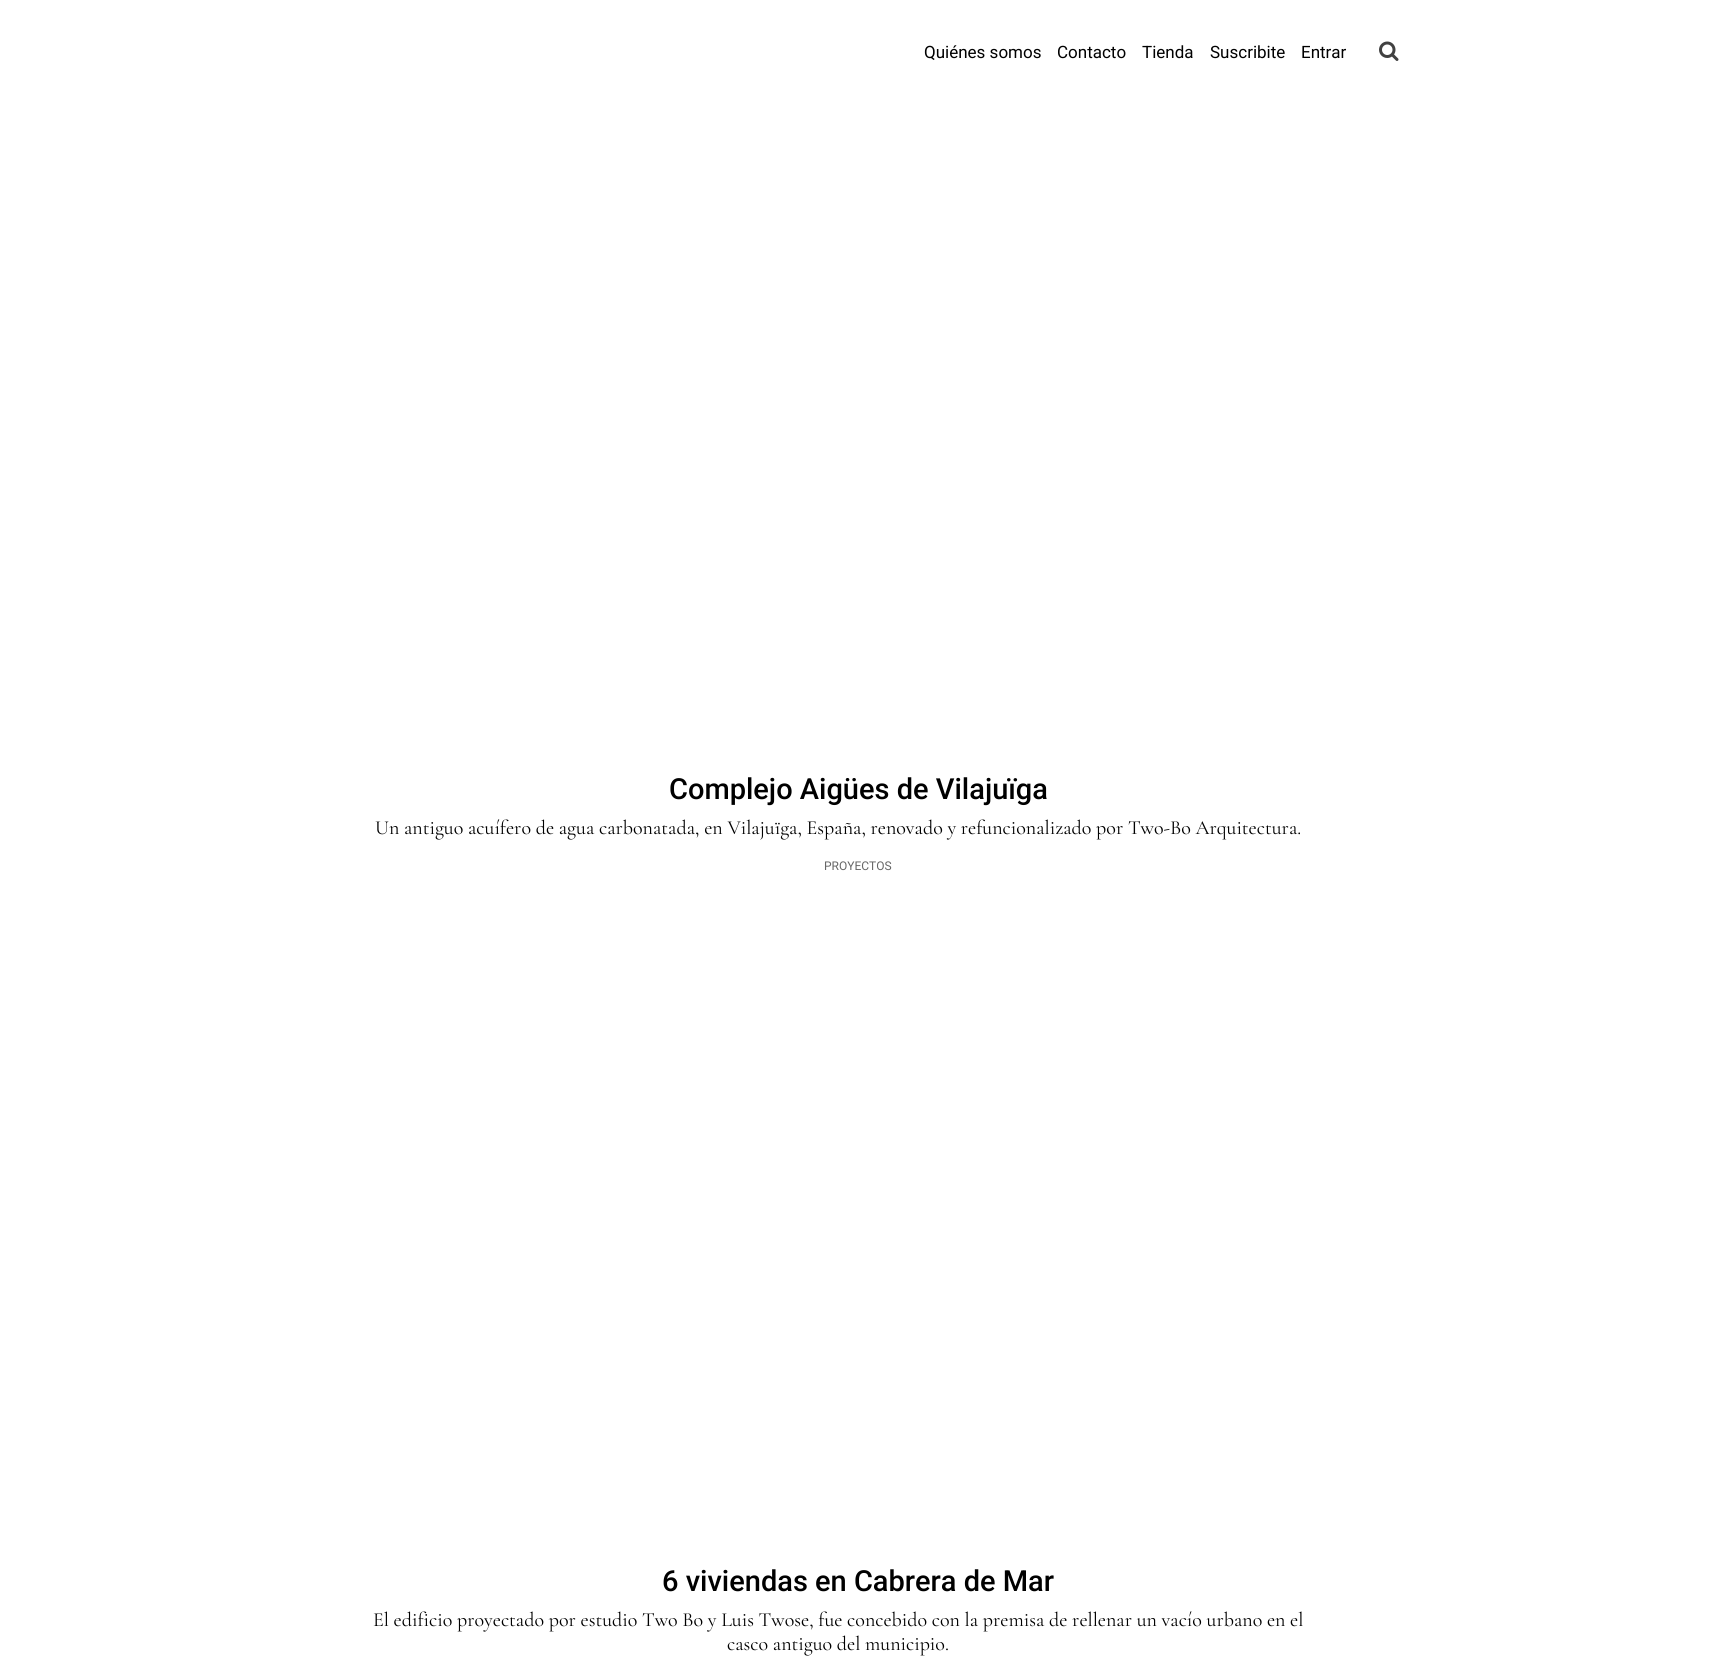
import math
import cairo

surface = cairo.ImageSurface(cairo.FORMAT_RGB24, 1716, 1666)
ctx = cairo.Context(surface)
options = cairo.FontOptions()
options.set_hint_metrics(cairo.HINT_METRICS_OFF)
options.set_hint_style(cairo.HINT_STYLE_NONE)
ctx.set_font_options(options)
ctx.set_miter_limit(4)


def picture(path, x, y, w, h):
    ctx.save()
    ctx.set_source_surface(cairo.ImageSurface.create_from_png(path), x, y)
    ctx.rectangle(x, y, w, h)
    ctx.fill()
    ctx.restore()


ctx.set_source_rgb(1, 1, 1)
ctx.paint()
ctx.select_font_face("Roboto")
ctx.set_font_size(17)
ctx.set_source_rgb(0, 0, 0)
ctx.move_to(924, 58)
ctx.show_text("Quiénes somos")
ctx.move_to(1057, 58)
ctx.show_text("Contacto")
ctx.move_to(1142, 58)
ctx.show_text("Tienda")
ctx.move_to(1210, 58)
ctx.show_text("Suscribite")
ctx.move_to(1301, 58)
ctx.show_text("Entrar")
picture("img1.png", 1379, 41, 20, 20)
ctx.select_font_face("Roboto Medium")
ctx.set_font_size(29)
ctx.move_to(669, 799)
ctx.show_text("Complejo Aigües de Vilajuïga")
ctx.select_font_face("Cormorant Garamond")
ctx.set_font_size(20)
ctx.move_to(375, 834)
ctx.show_text("Un antiguo acuífero de agua carbonatada, en Vilajuïga, España, renovado y refuncionalizado por Two-Bo Arquitectura.")
ctx.select_font_face("Roboto")
ctx.set_font_size(12)
ctx.set_source_rgb(0.4, 0.4, 0.4)
ctx.move_to(824, 870)
ctx.show_text("PROYECTOS")
ctx.select_font_face("Roboto Medium")
ctx.set_font_size(29)
ctx.set_source_rgb(0, 0, 0)
ctx.move_to(662, 1591)
ctx.show_text("6 viviendas en Cabrera de Mar")
ctx.select_font_face("Cormorant Garamond")
ctx.set_font_size(20)
ctx.move_to(373, 1626)
ctx.show_text("El edificio proyectado por estudio Two Bo y Luis Twose, fue concebido con la premisa de rellenar un vacío urbano en el")
ctx.move_to(727, 1650)
ctx.show_text("casco antiguo del municipio.")
surface.write_to_png("page.png")
